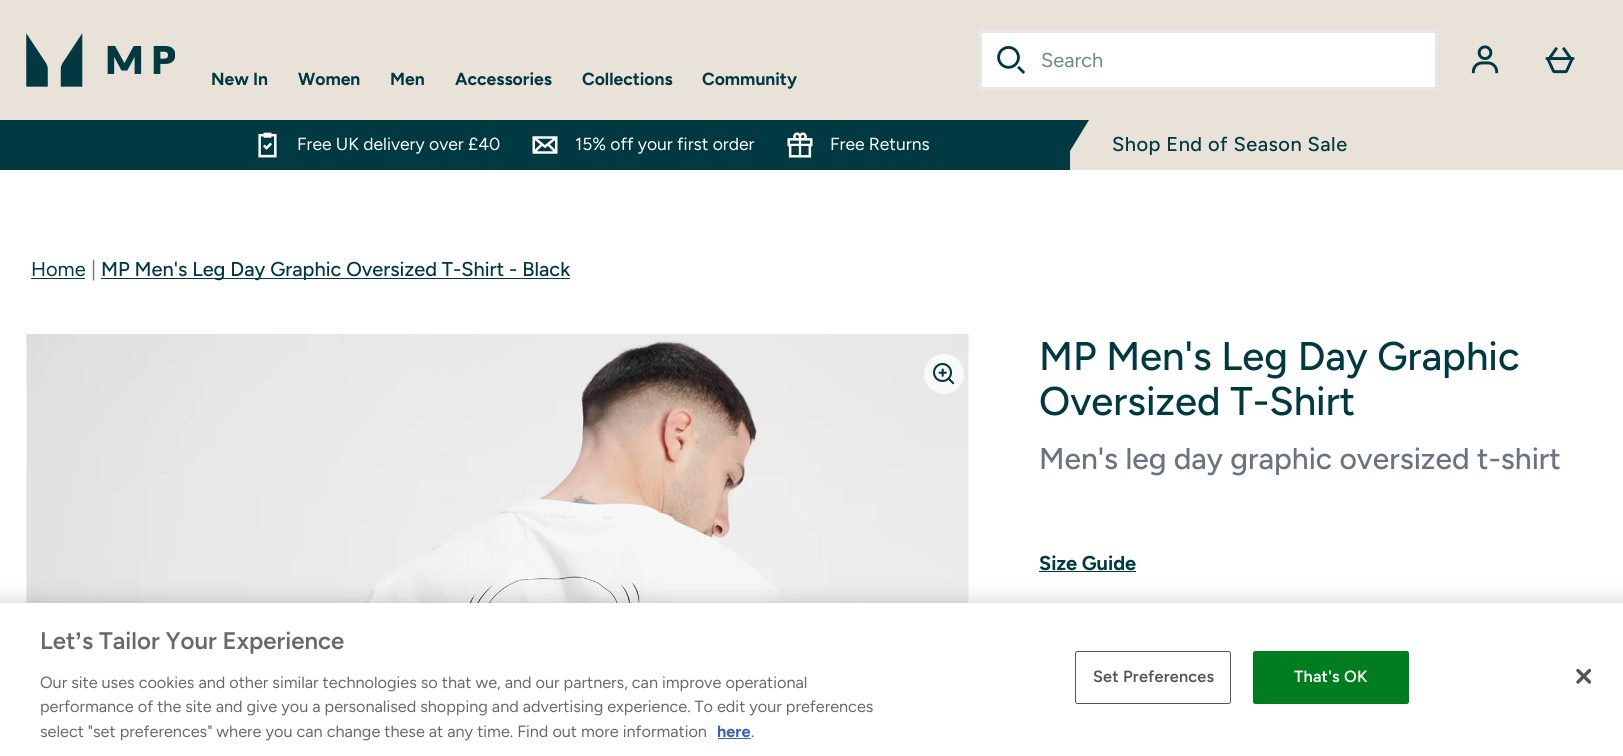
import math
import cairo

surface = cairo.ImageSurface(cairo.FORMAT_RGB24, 1623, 756)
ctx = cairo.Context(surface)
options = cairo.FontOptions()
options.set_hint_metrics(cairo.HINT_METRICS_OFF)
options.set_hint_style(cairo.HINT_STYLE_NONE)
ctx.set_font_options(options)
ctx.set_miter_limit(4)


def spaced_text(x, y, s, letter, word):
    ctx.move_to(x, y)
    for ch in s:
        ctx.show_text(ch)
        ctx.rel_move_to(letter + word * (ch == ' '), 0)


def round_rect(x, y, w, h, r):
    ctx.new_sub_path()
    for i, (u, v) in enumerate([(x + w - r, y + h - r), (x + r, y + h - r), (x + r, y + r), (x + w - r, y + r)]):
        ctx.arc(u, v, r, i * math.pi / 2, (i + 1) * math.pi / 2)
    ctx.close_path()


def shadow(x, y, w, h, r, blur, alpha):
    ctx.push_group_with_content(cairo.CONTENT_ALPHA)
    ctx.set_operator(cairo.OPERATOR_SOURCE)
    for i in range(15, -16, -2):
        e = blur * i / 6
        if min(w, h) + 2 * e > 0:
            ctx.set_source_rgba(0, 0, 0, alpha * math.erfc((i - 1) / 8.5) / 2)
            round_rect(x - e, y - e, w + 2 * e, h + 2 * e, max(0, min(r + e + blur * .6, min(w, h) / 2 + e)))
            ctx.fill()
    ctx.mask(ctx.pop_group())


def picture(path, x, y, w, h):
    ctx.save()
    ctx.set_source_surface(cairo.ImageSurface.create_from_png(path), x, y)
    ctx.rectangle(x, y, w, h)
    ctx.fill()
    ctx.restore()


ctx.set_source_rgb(1, 1, 1)
ctx.paint()
ctx.set_source_rgb(0.914, 0.886, 0.847)
ctx.rectangle(0, 0, 1623, 120)
ctx.fill()
ctx.set_source_rgb(1, 1, 1)
ctx.rectangle(980.5, 31.5, 456, 57)
ctx.fill_preserve()
ctx.set_source_rgb(0.898, 0.906, 0.922)
ctx.set_line_width(3)
ctx.stroke()
picture("img1.png", 997, 46, 28, 28)
ctx.select_font_face("Figtree")
ctx.set_font_size(20)
ctx.set_source_rgb(0.4, 0.533, 0.557)
ctx.move_to(1041, 67)
ctx.show_text("Search")
picture("img2.png", 1471, 45, 28, 29)
picture("img3.png", 1545, 47, 30, 27)
picture("img4.png", 26, 33, 149, 54)
ctx.select_font_face("Figtree", cairo.FONT_SLANT_NORMAL, cairo.FONT_WEIGHT_BOLD)
ctx.set_font_size(17.5)
ctx.set_source_rgb(0, 0.224, 0.259)
ctx.move_to(211, 85)
ctx.show_text("New In")
ctx.move_to(298, 85)
ctx.show_text("Women")
ctx.move_to(390, 85)
ctx.show_text("Men")
ctx.move_to(455, 85)
ctx.show_text("Accessories")
ctx.move_to(582, 85)
ctx.show_text("Collections")
ctx.move_to(702, 85)
ctx.show_text("Community")
gradient = cairo.LinearGradient(0, 145, 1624, 145)
gradient.add_color_stop_rgba(0.3, 0, 0.224, 0.259, 1)
gradient.add_color_stop_rgba(0.6, 0.914, 0.886, 0.847, 1)
ctx.set_source(gradient)
ctx.rectangle(0, 120, 1623, 50)
ctx.fill()
ctx.set_source_rgb(0, 0.224, 0.259)
ctx.rectangle(492, 120, 578, 50)
ctx.fill()
picture("img5.png", 258, 132, 19, 26)
ctx.select_font_face("Figtree")
ctx.set_source_rgb(1, 1, 1)
ctx.move_to(297, 150)
ctx.show_text("Free UK delivery over £40")
picture("img6.png", 532, 136, 26, 18)
ctx.move_to(575, 150)
ctx.show_text("15% off your first order")
picture("img7.png", 787, 132, 26, 26)
ctx.move_to(830, 150)
ctx.show_text("Free Returns")
ctx.set_source_rgb(0, 0.224, 0.259)
ctx.new_path()
ctx.move_to(1070, 120)
ctx.line_to(1089, 120)
ctx.line_to(1070, 151)
ctx.close_path()
ctx.fill()
ctx.select_font_face("Figtree Medium")
ctx.set_font_size(20)
spaced_text(1112, 151, "Shop End of Season Sale", 0.5, 0)
ctx.select_font_face("Figtree")
ctx.move_to(31, 276)
ctx.show_text("Home")
ctx.rectangle(31, 278, 54, 1)
ctx.fill()
ctx.set_source_rgb(0.42, 0.447, 0.502)
ctx.move_to(91, 276)
ctx.show_text("|")
ctx.set_source_rgb(0, 0.224, 0.259)
ctx.rectangle(101, 278, 469, 1)
ctx.fill()
ctx.select_font_face("Figtree Medium")
ctx.move_to(101, 276)
ctx.show_text("MP Men's Leg Day Graphic Oversized T-Shirt - Black")
picture("img8.png", 26, 334, 943, 269)
ctx.set_source_rgb(0.973, 0.973, 0.973)
ctx.arc(944, 374, 20, 0, 2 * math.pi)
ctx.fill()
picture("img9.png", 932, 362, 23, 23)
ctx.set_font_size(40)
ctx.set_source_rgb(0, 0.224, 0.259)
ctx.move_to(1039, 370)
ctx.show_text("MP Men's Leg Day Graphic")
ctx.move_to(1039, 415)
ctx.show_text("Oversized T-Shirt")
ctx.set_font_size(30)
ctx.set_source_rgb(0.42, 0.447, 0.502)
ctx.move_to(1039, 469)
ctx.show_text("Men's leg day graphic oversized t-shirt")
ctx.select_font_face("Figtree", cairo.FONT_SLANT_NORMAL, cairo.FONT_WEIGHT_BOLD)
ctx.set_font_size(20)
ctx.set_source_rgb(0, 0.224, 0.259)
ctx.move_to(1039, 570)
ctx.show_text("Size Guide")
ctx.rectangle(1039, 571, 97, 1)
ctx.fill()
ctx.set_source_rgb(0, 0, 0)
shadow(0, 603, 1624, 153, 0, 11, 0.2)
ctx.set_source_rgb(1, 1, 1)
ctx.rectangle(0, 603, 1623, 153)
ctx.fill()
ctx.select_font_face("Figtree SemiBold")
ctx.set_font_size(24)
ctx.set_source_rgb(0.412, 0.412, 0.412)
ctx.move_to(40, 649)
ctx.show_text("Let")
ctx.select_font_face("Liberation Sans", cairo.FONT_SLANT_NORMAL, cairo.FONT_WEIGHT_BOLD)
ctx.move_to(75, 649)
ctx.show_text("’")
ctx.select_font_face("Figtree SemiBold")
ctx.move_to(82, 649)
ctx.show_text("s Tailor Your Experience")
ctx.select_font_face("Figtree")
ctx.set_font_size(16.25)
ctx.move_to(40, 688)
ctx.show_text("Our site uses cookies and other similar technologies so that we, and our partners, can improve operational")
ctx.move_to(40, 712)
ctx.show_text("performance of the site and give you a personalised shopping and advertising experience. To edit your preferences")
ctx.move_to(40, 737)
ctx.show_text("select \"set preferences\" where you can change these at any time. Find out more information")
ctx.select_font_face("Figtree", cairo.FONT_SLANT_NORMAL, cairo.FONT_WEIGHT_BOLD)
ctx.set_source_rgb(0.22, 0.376, 0.745)
ctx.move_to(717, 737)
ctx.show_text("here")
ctx.rectangle(718, 738, 33, 1)
ctx.fill()
ctx.select_font_face("Figtree")
ctx.set_source_rgb(0.412, 0.412, 0.412)
ctx.move_to(751, 737)
ctx.show_text(".")
round_rect(1075.5, 651.5, 155, 52, 2)
ctx.set_source_rgb(0.333, 0.333, 0.333)
ctx.set_line_width(1)
ctx.stroke()
ctx.select_font_face("Figtree SemiBold")
spaced_text(1093, 682, "Set Preferences", 0.2, 0)
ctx.set_source_rgb(0, 0.49, 0.118)
round_rect(1253.5, 651.5, 155, 52, 2)
ctx.fill_preserve()
ctx.stroke()
ctx.set_source_rgb(1, 1, 1)
spaced_text(1294, 682, "That's OK", 0.2, 0)
picture("img10.png", 1576, 669, 15, 15)
surface.write_to_png("page.png")
